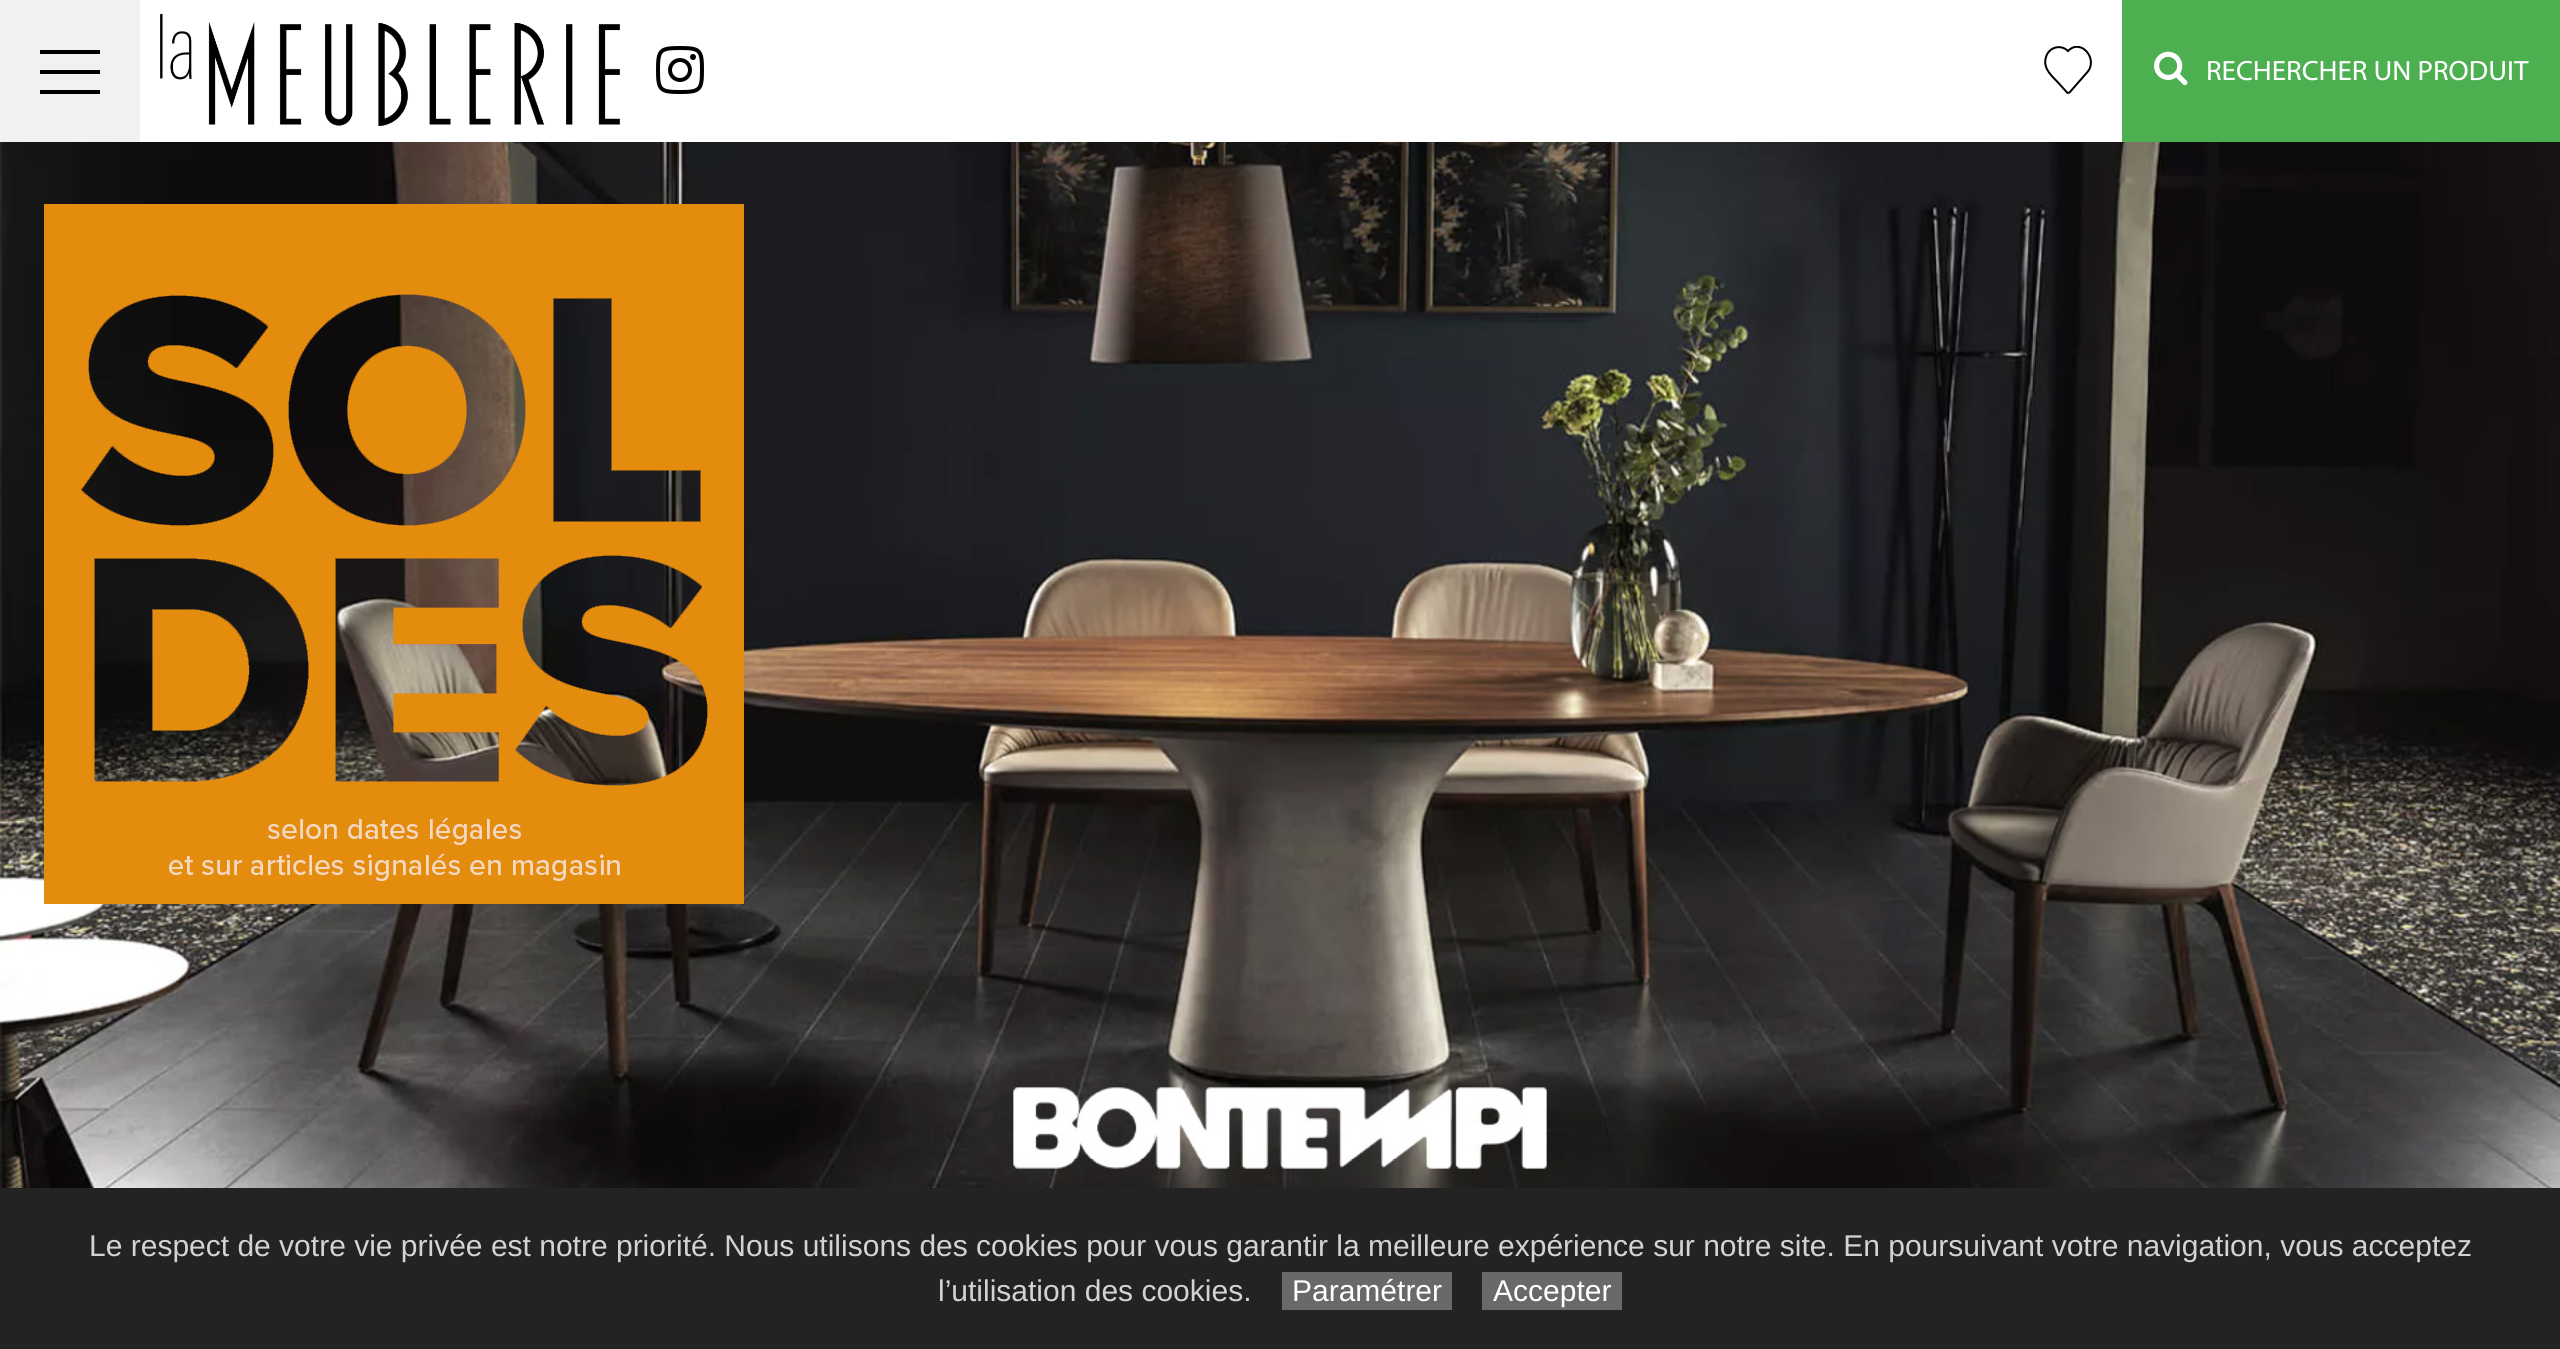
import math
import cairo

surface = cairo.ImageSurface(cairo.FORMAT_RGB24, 2560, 1349)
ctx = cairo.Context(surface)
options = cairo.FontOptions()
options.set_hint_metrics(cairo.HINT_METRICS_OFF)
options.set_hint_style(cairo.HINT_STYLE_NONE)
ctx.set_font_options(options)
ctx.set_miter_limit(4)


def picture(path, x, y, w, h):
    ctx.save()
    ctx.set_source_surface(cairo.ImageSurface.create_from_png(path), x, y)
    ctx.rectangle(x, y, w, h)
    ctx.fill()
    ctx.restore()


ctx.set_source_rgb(1, 1, 1)
ctx.paint()
ctx.set_source_rgb(0.945, 0.945, 0.945)
ctx.rectangle(0, 0, 140, 142)
ctx.fill()
ctx.set_source_rgb(0, 0, 0)
ctx.rectangle(40, 50, 60, 4)
ctx.fill()
ctx.rectangle(40, 70, 60, 4)
ctx.fill()
ctx.rectangle(40, 90, 60, 4)
ctx.fill()
picture("img1.png", 160, 13, 461, 113)
ctx.new_path()
ctx.move_to(680, 92)
ctx.curve_to(660, 92, 658, 90, 658, 70)
ctx.curve_to(658, 50, 660, 48, 680, 48)
ctx.curve_to(700, 48, 702, 50, 702, 70)
ctx.curve_to(702, 90, 700, 92, 680, 92)
ctx.close_path()
ctx.set_line_width(4)
ctx.stroke()
ctx.arc(680, 70, 10, 0, 2 * math.pi)
ctx.stroke()
ctx.arc(693, 57, 3, 0, 2 * math.pi)
ctx.fill()
ctx.save()
ctx.rectangle(2044, 46, 48, 48)
ctx.clip()
ctx.new_path()
ctx.move_to(2049, 51.5)
ctx.curve_to(2047, 53.5, 2046, 56.5, 2045.5, 59)
ctx.curve_to(2043.5, 69.5, 2052.5, 76.5, 2058.5, 83)
ctx.line_to(2067.5, 93)
ctx.line_to(2069.5, 92.5)
ctx.line_to(2087, 72.5)
ctx.curve_to(2099, 59.5, 2081, 37.5, 2068, 51)
ctx.curve_to(2062.5, 45.5, 2054, 46, 2049, 51.5)
ctx.close_path()
ctx.move_to(2049, 51.5)
ctx.line_to(2050, 52)
ctx.move_to(2049, 51.5)
ctx.line_to(2050, 52)
ctx.set_line_width(2)
ctx.stroke()
ctx.restore()
ctx.set_source_rgb(0.298, 0.686, 0.314)
ctx.rectangle(2122, 0, 438, 142)
ctx.fill()
picture("img2.png", 2154, 51, 34, 35)
ctx.select_font_face("Myriad")
ctx.set_font_size(28)
ctx.set_source_rgb(1, 1, 1)
ctx.move_to(2206, 80)
ctx.show_text("RECHERCHER UN PRODUIT")
picture("img3.png", 0, 142, 2560, 1046)
picture("img4.png", 44, 204, 700, 700)
ctx.set_source_rgb(0.137, 0.137, 0.137)
ctx.rectangle(0, 1188, 2560, 161)
ctx.fill()
ctx.select_font_face("Liberation Sans")
ctx.set_font_size(30)
ctx.set_source_rgb(0.827, 0.827, 0.827)
ctx.move_to(89, 1256)
ctx.show_text("Le respect de votre vie privée est notre priorité. Nous utilisons des cookies pour vous garantir la meilleure expérience sur notre site. En poursuivant votre navigation, vous acceptez")
ctx.move_to(938, 1301)
ctx.show_text("l’utilisation des cookies.")
ctx.set_source_rgb(0.412, 0.412, 0.412)
ctx.rectangle(1282, 1272, 170, 38)
ctx.fill()
ctx.set_source_rgb(1, 1, 1)
ctx.move_to(1292, 1301)
ctx.show_text("Paramétrer")
ctx.set_source_rgb(0.412, 0.412, 0.412)
ctx.rectangle(1482, 1272, 140, 38)
ctx.fill()
ctx.set_source_rgb(1, 1, 1)
ctx.move_to(1493, 1301)
ctx.show_text("Accepter")
surface.write_to_png("page.png")
